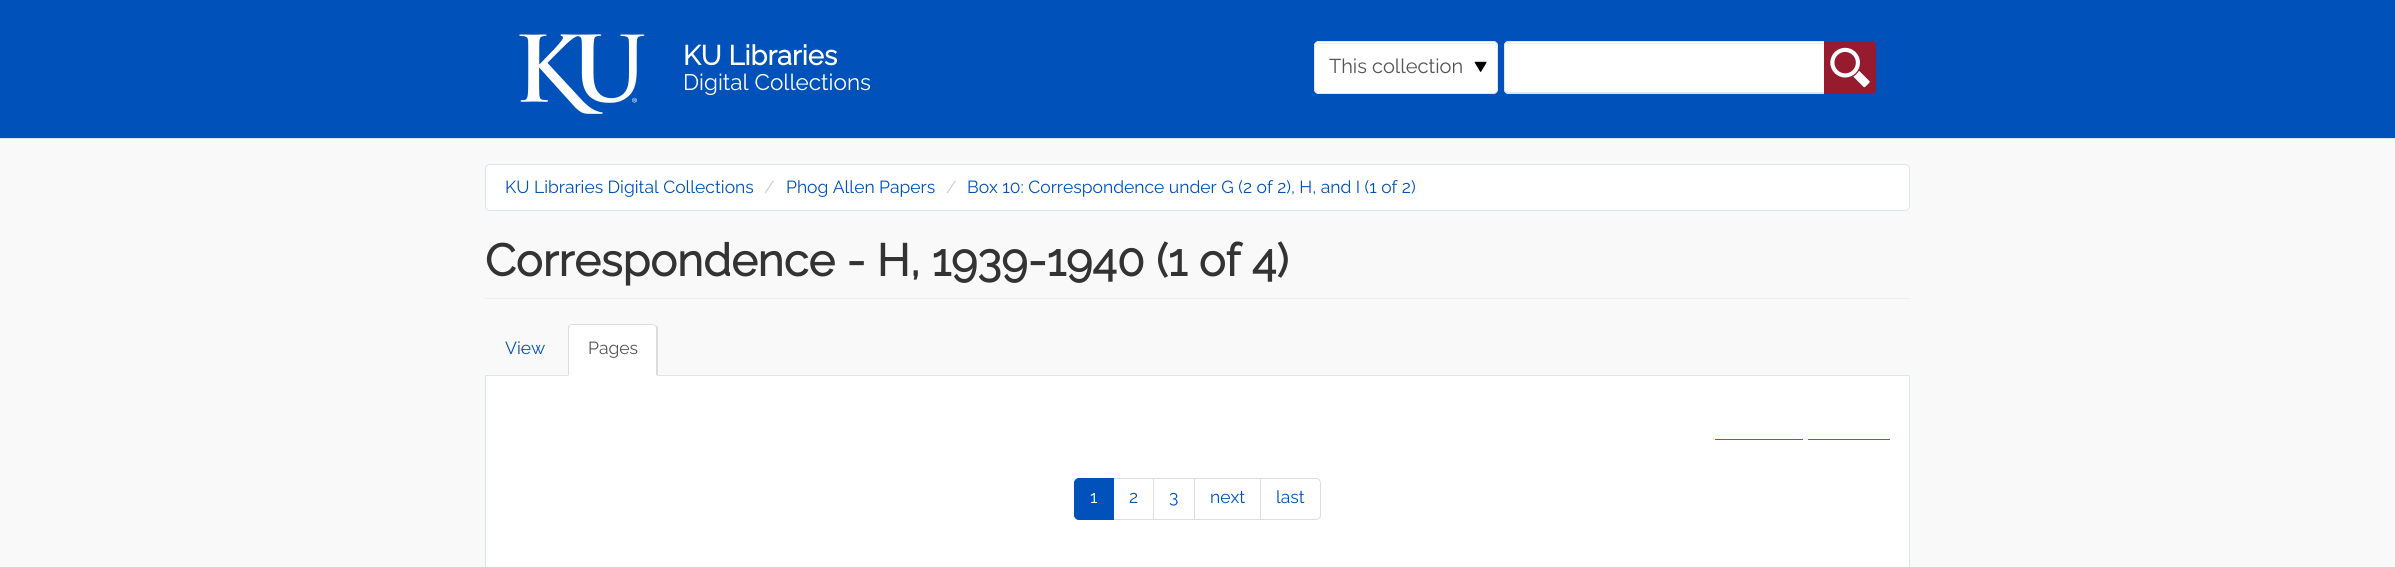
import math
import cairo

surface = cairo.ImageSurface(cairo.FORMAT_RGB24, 2395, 567)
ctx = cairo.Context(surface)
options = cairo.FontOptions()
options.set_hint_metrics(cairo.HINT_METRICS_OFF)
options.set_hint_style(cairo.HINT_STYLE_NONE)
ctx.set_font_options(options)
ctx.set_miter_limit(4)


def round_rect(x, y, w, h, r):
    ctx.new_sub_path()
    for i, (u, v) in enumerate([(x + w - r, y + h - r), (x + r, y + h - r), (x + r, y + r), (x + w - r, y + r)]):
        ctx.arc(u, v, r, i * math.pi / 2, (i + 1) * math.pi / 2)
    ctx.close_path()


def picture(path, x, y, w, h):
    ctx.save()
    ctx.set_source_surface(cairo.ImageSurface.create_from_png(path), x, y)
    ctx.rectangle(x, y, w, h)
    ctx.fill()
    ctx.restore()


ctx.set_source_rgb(0.973, 0.973, 0.973)
ctx.paint()
ctx.set_source_rgb(0, 0.318, 0.729)
ctx.rectangle(0, 0, 2395, 138)
ctx.fill()
ctx.set_source_rgb(0.843, 0.89, 0.965)
ctx.rectangle(0, 138, 2395, 1)
ctx.fill()
picture("img1.png", 519, 34, 126, 80)
ctx.select_font_face("Raleway", cairo.FONT_SLANT_NORMAL, cairo.FONT_WEIGHT_BOLD)
ctx.set_font_size(27.5)
ctx.set_source_rgb(1, 1, 1)
ctx.move_to(683, 65)
ctx.show_text("KU Libraries")
ctx.select_font_face("Raleway Thin")
ctx.set_font_size(22.5)
ctx.move_to(683, 90)
ctx.show_text("Digital Collections")
round_rect(1314, 41, 184, 53, 5)
ctx.fill()
picture("img2.png", 1474, 61, 13, 11)
ctx.set_source_rgb(0.925, 0.925, 0.925)
ctx.new_path()
ctx.move_to(1319, 44)
ctx.line_to(1492, 44)
ctx.curve_to(1495, 44, 1496, 45, 1496, 48)
ctx.line_to(1496, 47)
ctx.curve_to(1496, 45, 1494, 43, 1492, 43)
ctx.line_to(1319, 43)
ctx.curve_to(1317, 43, 1315, 45, 1315, 47)
ctx.line_to(1315, 48)
ctx.curve_to(1315, 45, 1317, 44, 1319, 44)
ctx.close_path()
ctx.fill()
round_rect(1314.5, 41.5, 183, 52, 4.5)
ctx.set_source_rgb(0.867, 0.898, 0.929)
ctx.set_line_width(1)
ctx.stroke()
ctx.set_font_size(20)
ctx.set_source_rgb(0.333, 0.333, 0.333)
ctx.move_to(1329, 73)
ctx.show_text("This collection")
ctx.set_source_rgb(1, 1, 1)
ctx.new_path()
ctx.move_to(1509, 41)
ctx.line_to(1824, 41)
ctx.line_to(1824, 94)
ctx.line_to(1509, 94)
ctx.curve_to(1506, 94, 1504, 92, 1504, 89)
ctx.line_to(1504, 46)
ctx.curve_to(1504, 43, 1506, 41, 1509, 41)
ctx.close_path()
ctx.fill()
ctx.set_source_rgb(0.925, 0.925, 0.925)
ctx.new_path()
ctx.move_to(1509, 44)
ctx.line_to(1824, 44)
ctx.line_to(1824, 43)
ctx.line_to(1509, 43)
ctx.curve_to(1507, 43, 1505, 45, 1505, 47)
ctx.line_to(1505, 48)
ctx.curve_to(1505, 45, 1507, 44, 1509, 44)
ctx.close_path()
ctx.fill()
ctx.set_source_rgb(0.867, 0.898, 0.929)
ctx.set_fill_rule(cairo.FILL_RULE_EVEN_ODD)
ctx.new_path()
ctx.move_to(1509, 41)
ctx.line_to(1824, 41)
ctx.line_to(1824, 94)
ctx.line_to(1509, 94)
ctx.curve_to(1506, 94, 1504, 92, 1504, 89)
ctx.line_to(1504, 46)
ctx.curve_to(1504, 43, 1506, 41, 1509, 41)
ctx.close_path()
ctx.move_to(1509, 42)
ctx.line_to(1824, 42)
ctx.line_to(1824, 92)
ctx.line_to(1509, 92)
ctx.curve_to(1507, 92, 1505, 91, 1505, 89)
ctx.line_to(1505, 46)
ctx.curve_to(1505, 44, 1507, 42, 1509, 42)
ctx.close_path()
ctx.fill()
ctx.set_source_rgb(0.592, 0.106, 0.184)
ctx.new_path()
ctx.move_to(1824, 41)
ctx.line_to(1871, 41)
ctx.curve_to(1874, 41, 1876, 43, 1876, 46)
ctx.line_to(1876, 89)
ctx.curve_to(1876, 92, 1874, 94, 1871, 94)
ctx.line_to(1824, 94)
ctx.close_path()
ctx.fill()
picture("img3.png", 1830, 47, 40, 41)
ctx.new_path()
ctx.move_to(1824.5, 41.5)
ctx.line_to(1871, 41.5)
ctx.curve_to(1873.5, 41.5, 1875.5, 43.5, 1875.5, 46)
ctx.line_to(1875.5, 89)
ctx.curve_to(1875.5, 91.5, 1873.5, 93.5, 1871, 93.5)
ctx.line_to(1824.5, 93.5)
ctx.close_path()
ctx.stroke()
ctx.set_source_rgb(1, 1, 1)
round_rect(485.5, 164.5, 1424, 46, 4.5)
ctx.fill_preserve()
ctx.set_source_rgb(0.867, 0.898, 0.929)
ctx.stroke()
ctx.set_font_size(17.5)
ctx.set_source_rgb(0, 0.318, 0.729)
ctx.move_to(505, 193)
ctx.show_text("KU Libraries Digital Collections")
ctx.set_source_rgb(0.8, 0.8, 0.8)
ctx.move_to(764, 193)
ctx.show_text("/")
ctx.set_source_rgb(0, 0.318, 0.729)
ctx.move_to(786, 193)
ctx.show_text("Phog Allen Papers")
ctx.set_source_rgb(0.8, 0.8, 0.8)
ctx.move_to(946, 193)
ctx.show_text("/")
ctx.set_source_rgb(0, 0.318, 0.729)
ctx.move_to(967, 193)
ctx.show_text("Box 10: Correspondence under G (2 of 2), H, and I (1 of 2)")
ctx.set_source_rgb(0.933, 0.933, 0.933)
ctx.rectangle(485, 298, 1425, 1)
ctx.fill()
ctx.select_font_face("Raleway", cairo.FONT_SLANT_NORMAL, cairo.FONT_WEIGHT_BOLD)
ctx.set_font_size(45)
ctx.set_source_rgb(0.2, 0.2, 0.2)
ctx.move_to(485, 276)
ctx.show_text("Correspondence - H, 1939-1940 (1 of 4)")
ctx.select_font_face("Raleway Thin")
ctx.set_font_size(17.5)
ctx.set_source_rgb(0, 0.318, 0.729)
ctx.move_to(505, 354)
ctx.show_text("View")
ctx.set_source_rgb(1, 1, 1)
ctx.rectangle(485.5, 375.5, 1424, 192)
ctx.fill_preserve()
ctx.set_source_rgb(0.867, 0.898, 0.929)
ctx.stroke()
ctx.set_source_rgb(1, 1, 1)
ctx.new_path()
ctx.move_to(573, 324)
ctx.line_to(653, 324)
ctx.curve_to(656, 324, 658, 326, 658, 329)
ctx.line_to(658, 376)
ctx.line_to(568, 376)
ctx.line_to(568, 329)
ctx.curve_to(568, 326, 570, 324, 573, 324)
ctx.close_path()
ctx.fill()
ctx.set_source_rgb(0.867, 0.867, 0.867)
ctx.set_fill_rule(cairo.FILL_RULE_WINDING)
ctx.new_path()
ctx.move_to(572, 324)
ctx.curve_to(571, 324, 570, 325, 569, 325)
ctx.line_to(570, 326)
ctx.curve_to(570, 325, 571, 325, 572, 325)
ctx.line_to(652, 325)
ctx.curve_to(653, 325, 654, 325, 655, 326)
ctx.line_to(656, 325)
ctx.line_to(652, 324)
ctx.close_path()
ctx.fill()
ctx.new_path()
ctx.move_to(656, 325)
ctx.line_to(658, 327)
ctx.line_to(658, 376)
ctx.line_to(656, 375)
ctx.line_to(656, 329)
ctx.curve_to(656, 328, 656, 327, 655, 326)
ctx.close_path()
ctx.fill()
ctx.new_path()
ctx.move_to(569, 325)
ctx.curve_to(568, 326, 568, 328, 568, 329)
ctx.line_to(568, 376)
ctx.line_to(569, 375)
ctx.line_to(569, 329)
ctx.line_to(570, 326)
ctx.close_path()
ctx.fill()
ctx.set_source_rgb(0.333, 0.333, 0.333)
ctx.move_to(588, 354)
ctx.show_text("Pages")
ctx.set_source_rgb(0.153, 0.404, 1)
ctx.rectangle(1715, 439, 88, 1)
ctx.fill()
ctx.rectangle(1808, 439, 82, 1)
ctx.fill()
ctx.rectangle(1113.5, 478.5, 40, 41)
ctx.set_source_rgb(0.867, 0.867, 0.867)
ctx.stroke()
ctx.set_source_rgb(0, 0.318, 0.729)
ctx.new_path()
ctx.move_to(1079, 478.5)
ctx.line_to(1113.5, 478.5)
ctx.line_to(1113.5, 519.5)
ctx.line_to(1079, 519.5)
ctx.curve_to(1076.5, 519.5, 1074.5, 517.5, 1074.5, 515)
ctx.line_to(1074.5, 483)
ctx.curve_to(1074.5, 480.5, 1076.5, 478.5, 1079, 478.5)
ctx.close_path()
ctx.fill_preserve()
ctx.stroke()
ctx.set_source_rgb(1, 1, 1)
ctx.move_to(1090, 503)
ctx.show_text("1")
ctx.set_source_rgb(0, 0.318, 0.729)
ctx.move_to(1129, 503)
ctx.show_text("2")
ctx.rectangle(1153.5, 478.5, 41, 41)
ctx.set_source_rgb(0.867, 0.867, 0.867)
ctx.stroke()
ctx.set_source_rgb(0, 0.318, 0.729)
ctx.move_to(1169, 503)
ctx.show_text("3")
ctx.rectangle(1194.5, 478.5, 66, 41)
ctx.set_source_rgb(0.867, 0.867, 0.867)
ctx.stroke()
ctx.set_source_rgb(0, 0.318, 0.729)
ctx.move_to(1210, 503)
ctx.show_text("next")
ctx.set_source_rgb(1, 1, 1)
ctx.new_path()
ctx.move_to(1260.5, 478.5)
ctx.line_to(1316, 478.5)
ctx.curve_to(1318.5, 478.5, 1320.5, 480.5, 1320.5, 483)
ctx.line_to(1320.5, 515)
ctx.curve_to(1320.5, 517.5, 1318.5, 519.5, 1316, 519.5)
ctx.line_to(1260.5, 519.5)
ctx.close_path()
ctx.fill_preserve()
ctx.set_source_rgb(0.867, 0.867, 0.867)
ctx.stroke()
ctx.set_source_rgb(0, 0.318, 0.729)
ctx.move_to(1276, 503)
ctx.show_text("last")
surface.write_to_png("page.png")
